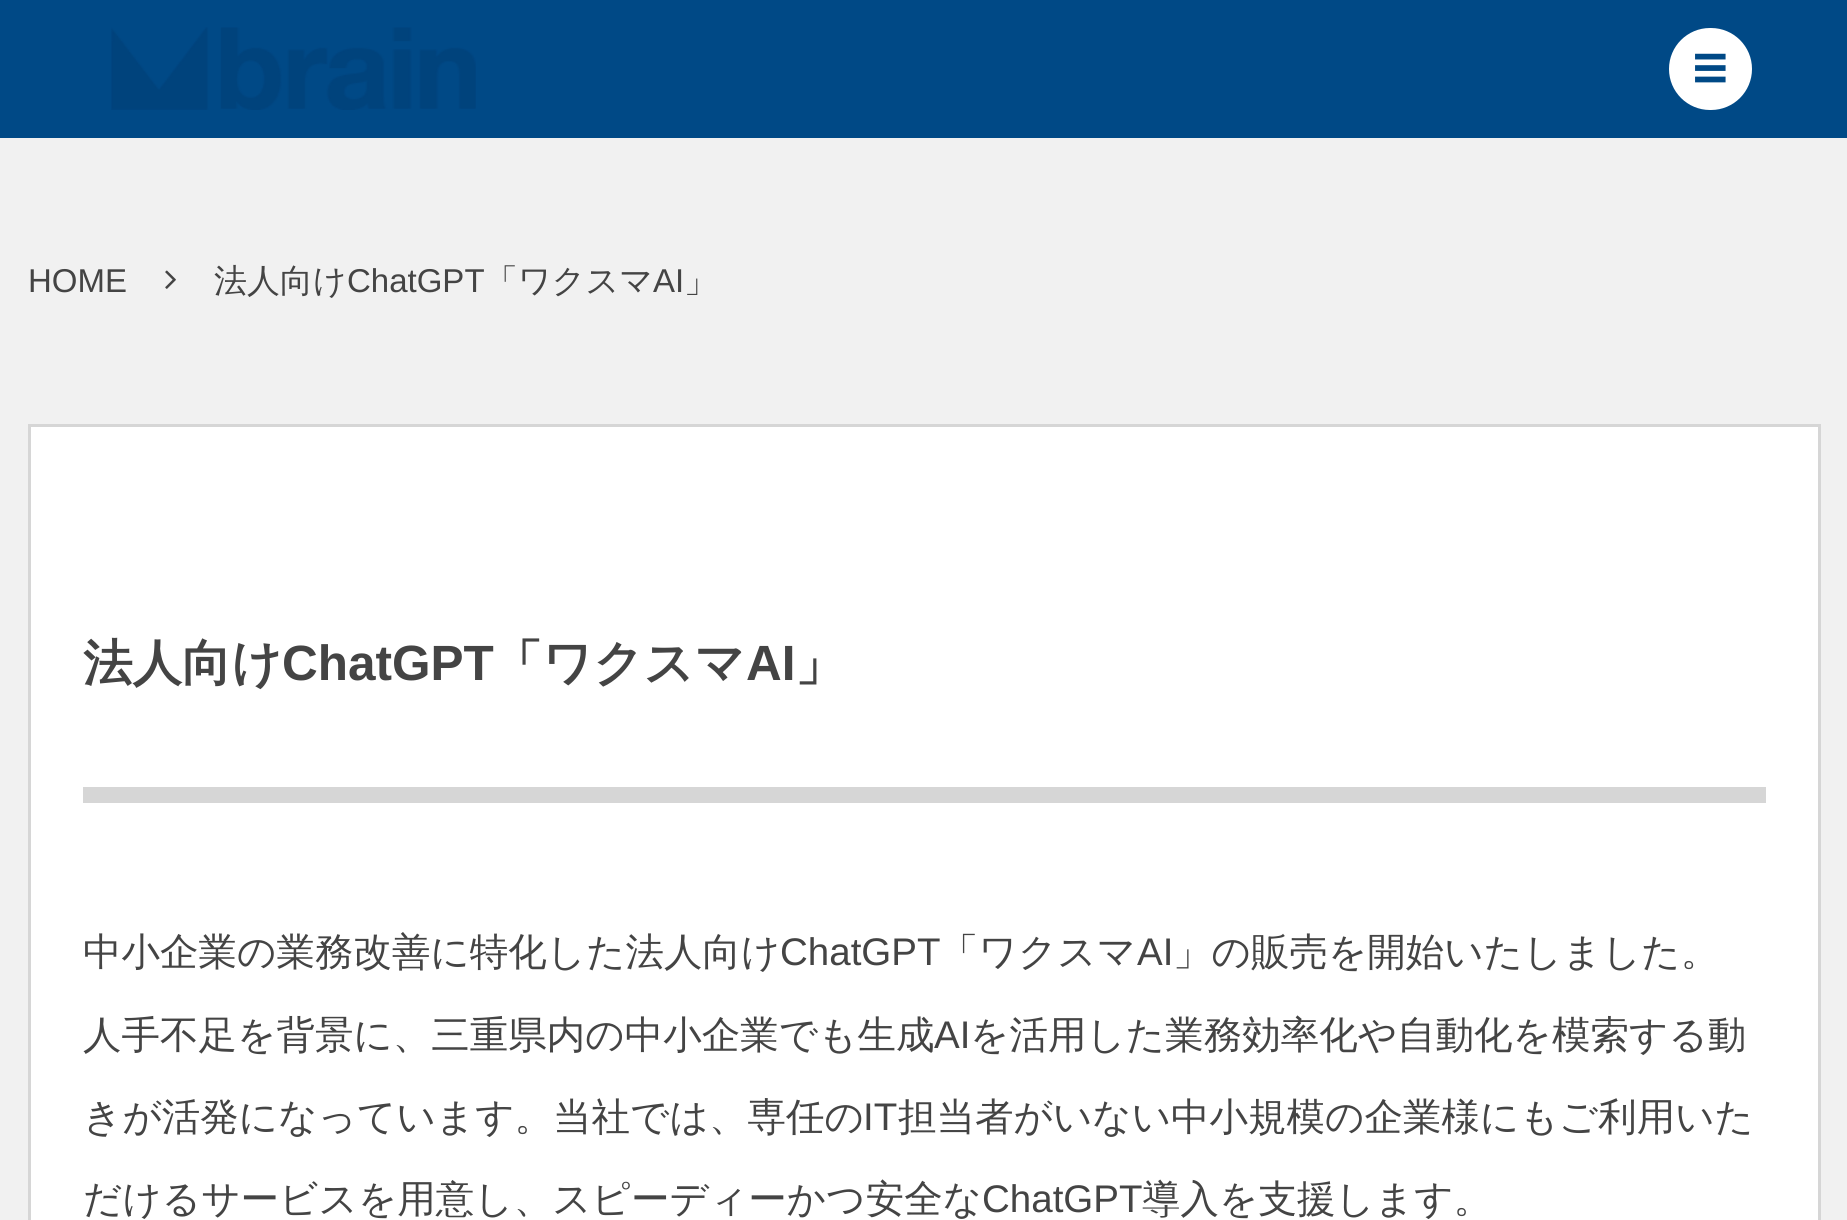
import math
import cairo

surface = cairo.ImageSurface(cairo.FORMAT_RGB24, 1847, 1220)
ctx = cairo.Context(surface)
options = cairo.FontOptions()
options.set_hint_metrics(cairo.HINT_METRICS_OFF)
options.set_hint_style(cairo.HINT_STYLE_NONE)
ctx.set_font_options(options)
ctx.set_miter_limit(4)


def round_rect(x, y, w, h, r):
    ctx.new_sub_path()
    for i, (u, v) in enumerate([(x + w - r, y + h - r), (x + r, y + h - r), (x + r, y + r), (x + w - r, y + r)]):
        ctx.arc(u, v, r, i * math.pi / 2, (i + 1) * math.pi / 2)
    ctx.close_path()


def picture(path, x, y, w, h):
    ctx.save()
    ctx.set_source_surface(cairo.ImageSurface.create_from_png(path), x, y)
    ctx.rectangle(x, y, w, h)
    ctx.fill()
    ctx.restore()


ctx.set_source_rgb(0.945, 0.945, 0.945)
ctx.paint()
ctx.set_source_rgb(0, 0.286, 0.525)
ctx.rectangle(0, 0, 1847, 138)
ctx.fill()
picture("img1.png", 111, 27, 365, 83)
ctx.set_source_rgb(1, 1, 1)
round_rect(1669, 28, 83, 82, 41)
ctx.fill()
picture("img2.png", 1695, 53, 31, 30)
ctx.select_font_face("Liberation Sans")
ctx.set_font_size(33)
ctx.set_source_rgb(0.267, 0.267, 0.267)
ctx.move_to(28, 292)
ctx.show_text("HOME")
picture("img3.png", 165, 270, 11, 19)
ctx.select_font_face("WenQuanYi Zen Hei Medium")
ctx.move_to(214, 292)
ctx.show_text("法人向け")
ctx.select_font_face("Liberation Sans")
ctx.move_to(347, 292)
ctx.show_text("ChatGPT")
ctx.select_font_face("WenQuanYi Zen Hei Medium")
ctx.move_to(485, 292)
ctx.show_text("「ワクスマ")
ctx.select_font_face("Liberation Sans")
ctx.move_to(653, 292)
ctx.show_text("AI")
ctx.select_font_face("WenQuanYi Zen Hei Medium")
ctx.move_to(684, 292)
ctx.show_text("」")
ctx.set_source_rgb(1, 1, 1)
ctx.rectangle(29.5, 425.5, 1790, 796)
ctx.fill_preserve()
ctx.set_source_rgb(0.839, 0.839, 0.839)
ctx.set_line_width(3)
ctx.stroke()
ctx.rectangle(83, 787, 1683, 16)
ctx.fill()
ctx.select_font_face("WenQuanYi Zen Hei", cairo.FONT_SLANT_NORMAL, cairo.FONT_WEIGHT_BOLD)
ctx.set_font_size(49.5)
ctx.set_source_rgb(0.267, 0.267, 0.267)
ctx.move_to(83, 680)
ctx.show_text("法人向け")
ctx.select_font_face("Liberation Sans", cairo.FONT_SLANT_NORMAL, cairo.FONT_WEIGHT_BOLD)
ctx.move_to(282, 680)
ctx.show_text("ChatGPT")
ctx.select_font_face("WenQuanYi Zen Hei", cairo.FONT_SLANT_NORMAL, cairo.FONT_WEIGHT_BOLD)
ctx.move_to(493, 680)
ctx.show_text("「ワクスマ")
ctx.select_font_face("Liberation Sans", cairo.FONT_SLANT_NORMAL, cairo.FONT_WEIGHT_BOLD)
ctx.move_to(746, 680)
ctx.show_text("AI")
ctx.select_font_face("WenQuanYi Zen Hei", cairo.FONT_SLANT_NORMAL, cairo.FONT_WEIGHT_BOLD)
ctx.move_to(795, 680)
ctx.show_text("」")
ctx.select_font_face("WenQuanYi Zen Hei Medium")
ctx.set_font_size(38.5)
ctx.move_to(83, 965)
ctx.show_text("中小企業の業務改善に特化した法人向け")
ctx.select_font_face("Liberation Sans")
ctx.move_to(780, 965)
ctx.show_text("ChatGPT")
ctx.select_font_face("WenQuanYi Zen Hei Medium")
ctx.move_to(940, 965)
ctx.show_text("「ワクスマ")
ctx.select_font_face("Liberation Sans")
ctx.move_to(1137, 965)
ctx.show_text("AI")
ctx.select_font_face("WenQuanYi Zen Hei Medium")
ctx.move_to(1173, 965)
ctx.show_text("」の販売を開始いたしました。")
ctx.move_to(83, 1048)
ctx.show_text("人手不足を背景に、三重県内の中小企業でも生成")
ctx.select_font_face("Liberation Sans")
ctx.move_to(934, 1048)
ctx.show_text("AI")
ctx.select_font_face("WenQuanYi Zen Hei Medium")
ctx.move_to(970, 1048)
ctx.show_text("を活用した業務効率化や自動化を模索する動")
ctx.move_to(83, 1130)
ctx.show_text("きが活発になっています。当社では、専任の")
ctx.select_font_face("Liberation Sans")
ctx.move_to(863, 1130)
ctx.show_text("IT")
ctx.select_font_face("WenQuanYi Zen Hei Medium")
ctx.move_to(898, 1130)
ctx.show_text("担当者がいない中小規模の企業様にもご利用いた")
ctx.move_to(83, 1212)
ctx.show_text("だけるサービスを用意し、スピーディーかつ安全な")
ctx.select_font_face("Liberation Sans")
ctx.move_to(982, 1212)
ctx.show_text("ChatGPT")
ctx.select_font_face("WenQuanYi Zen Hei Medium")
ctx.move_to(1142, 1212)
ctx.show_text("導入を支援します。")
surface.write_to_png("page.png")
